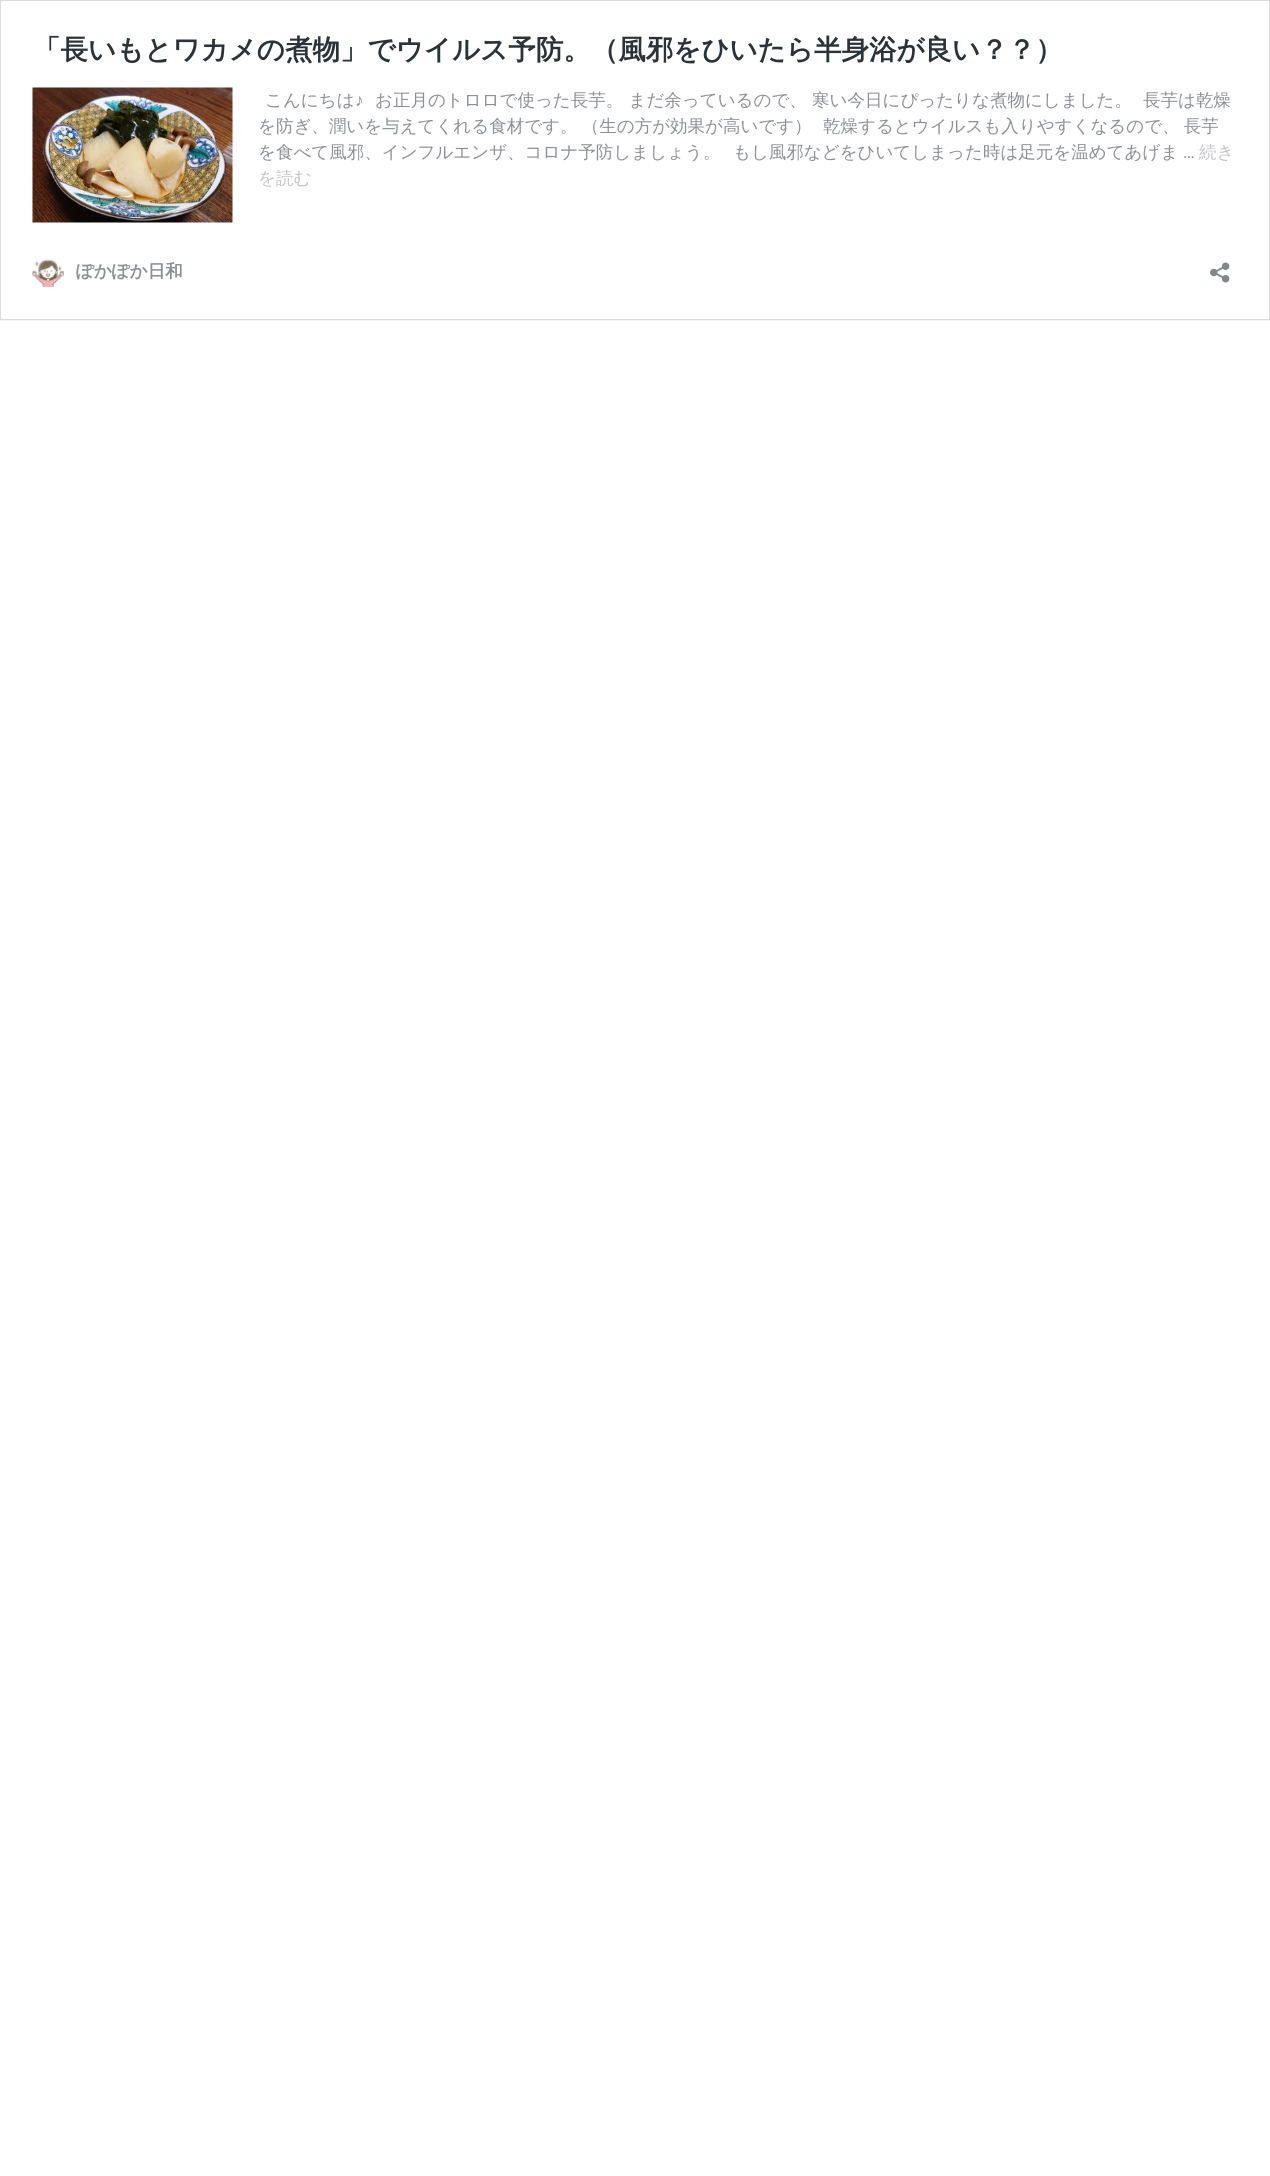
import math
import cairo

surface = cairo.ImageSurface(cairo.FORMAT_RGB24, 1270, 2176)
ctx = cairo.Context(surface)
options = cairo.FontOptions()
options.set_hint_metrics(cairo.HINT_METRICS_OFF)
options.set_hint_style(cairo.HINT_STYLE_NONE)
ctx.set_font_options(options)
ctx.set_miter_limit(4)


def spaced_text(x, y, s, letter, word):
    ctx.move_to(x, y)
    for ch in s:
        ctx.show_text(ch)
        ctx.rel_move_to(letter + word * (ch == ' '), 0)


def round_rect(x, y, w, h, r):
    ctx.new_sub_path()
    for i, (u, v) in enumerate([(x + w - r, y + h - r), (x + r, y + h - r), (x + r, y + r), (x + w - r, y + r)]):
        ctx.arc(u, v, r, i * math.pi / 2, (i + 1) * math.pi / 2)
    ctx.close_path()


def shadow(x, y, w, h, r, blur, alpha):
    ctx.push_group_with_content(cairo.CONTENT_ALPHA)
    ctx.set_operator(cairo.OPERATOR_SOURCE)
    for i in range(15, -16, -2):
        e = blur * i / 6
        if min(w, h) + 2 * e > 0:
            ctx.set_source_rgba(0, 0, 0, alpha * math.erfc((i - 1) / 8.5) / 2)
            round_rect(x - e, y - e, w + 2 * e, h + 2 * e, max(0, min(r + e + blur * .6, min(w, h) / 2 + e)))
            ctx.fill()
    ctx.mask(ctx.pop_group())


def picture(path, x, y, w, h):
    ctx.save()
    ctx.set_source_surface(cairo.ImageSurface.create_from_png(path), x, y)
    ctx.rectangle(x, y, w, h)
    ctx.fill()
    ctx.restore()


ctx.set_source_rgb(1, 1, 1)
ctx.paint()
ctx.save()
ctx.rectangle(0, 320, 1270, 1)
ctx.clip()
ctx.set_source_rgb(0, 0, 0)
shadow(0, 1, 1270, 320, 0, 0.5, 0.05)
ctx.restore()
ctx.rectangle(0.5, 0.5, 1269, 319)
ctx.set_source_rgb(0.863, 0.863, 0.871)
ctx.set_line_width(1)
ctx.stroke()
ctx.select_font_face("WenQuanYi Zen Hei", cairo.FONT_SLANT_NORMAL, cairo.FONT_WEIGHT_BOLD)
ctx.set_font_size(27.5)
ctx.set_source_rgb(0.173, 0.2, 0.22)
ctx.move_to(33, 59)
ctx.show_text("「長いもとワカメの煮物」でウイルス予防。（風邪をひいたら半身浴が良い？？）")
picture("img1.png", 32, 87, 201, 136)
ctx.select_font_face("WenQuanYi Zen Hei Medium")
ctx.set_font_size(17.5)
ctx.set_source_rgb(0.549, 0.561, 0.58)
ctx.move_to(265, 106)
ctx.show_text("こんにちは")
ctx.select_font_face("Liberation Sans")
ctx.move_to(355, 106)
ctx.show_text("♪")
ctx.select_font_face("WenQuanYi Zen Hei Medium")
ctx.move_to(375, 106)
ctx.show_text("お正月のトロロで使った長芋。 まだ余っているので、 寒い今日にぴったりな煮物にしました。")
ctx.move_to(1143, 106)
ctx.show_text("長芋は乾燥")
spaced_text(258, 132, "を防ぎ、潤いを与えてくれる食材です。 （生の方が効果が高いです）", 0, -1)
spaced_text(823, 132, "乾燥するとウイルスも入りやすくなるので、 長芋", 0, -1)
ctx.move_to(258, 158)
ctx.show_text("を食べて風邪、インフルエンザ、コロナ予防しましょう。")
ctx.move_to(733, 158)
ctx.show_text("もし風邪などをひいてしまった時は足元を温めてあげま")
ctx.select_font_face("Roboto")
ctx.move_to(1183, 158)
ctx.show_text("…")
ctx.select_font_face("WenQuanYi Zen Hei Medium")
ctx.set_source_rgb(0.765, 0.769, 0.78)
ctx.move_to(1199, 158)
ctx.show_text("続き")
ctx.move_to(258, 184)
ctx.show_text("を読む")
picture("img2.png", 32, 256, 32, 31)
ctx.select_font_face("WenQuanYi Zen Hei", cairo.FONT_SLANT_NORMAL, cairo.FONT_WEIGHT_BOLD)
ctx.set_source_rgb(0.549, 0.561, 0.58)
ctx.move_to(76, 277)
ctx.show_text("ぽかぽか日和")
picture("img3.png", 1210, 262, 20, 21)
surface.write_to_png("page.png")
